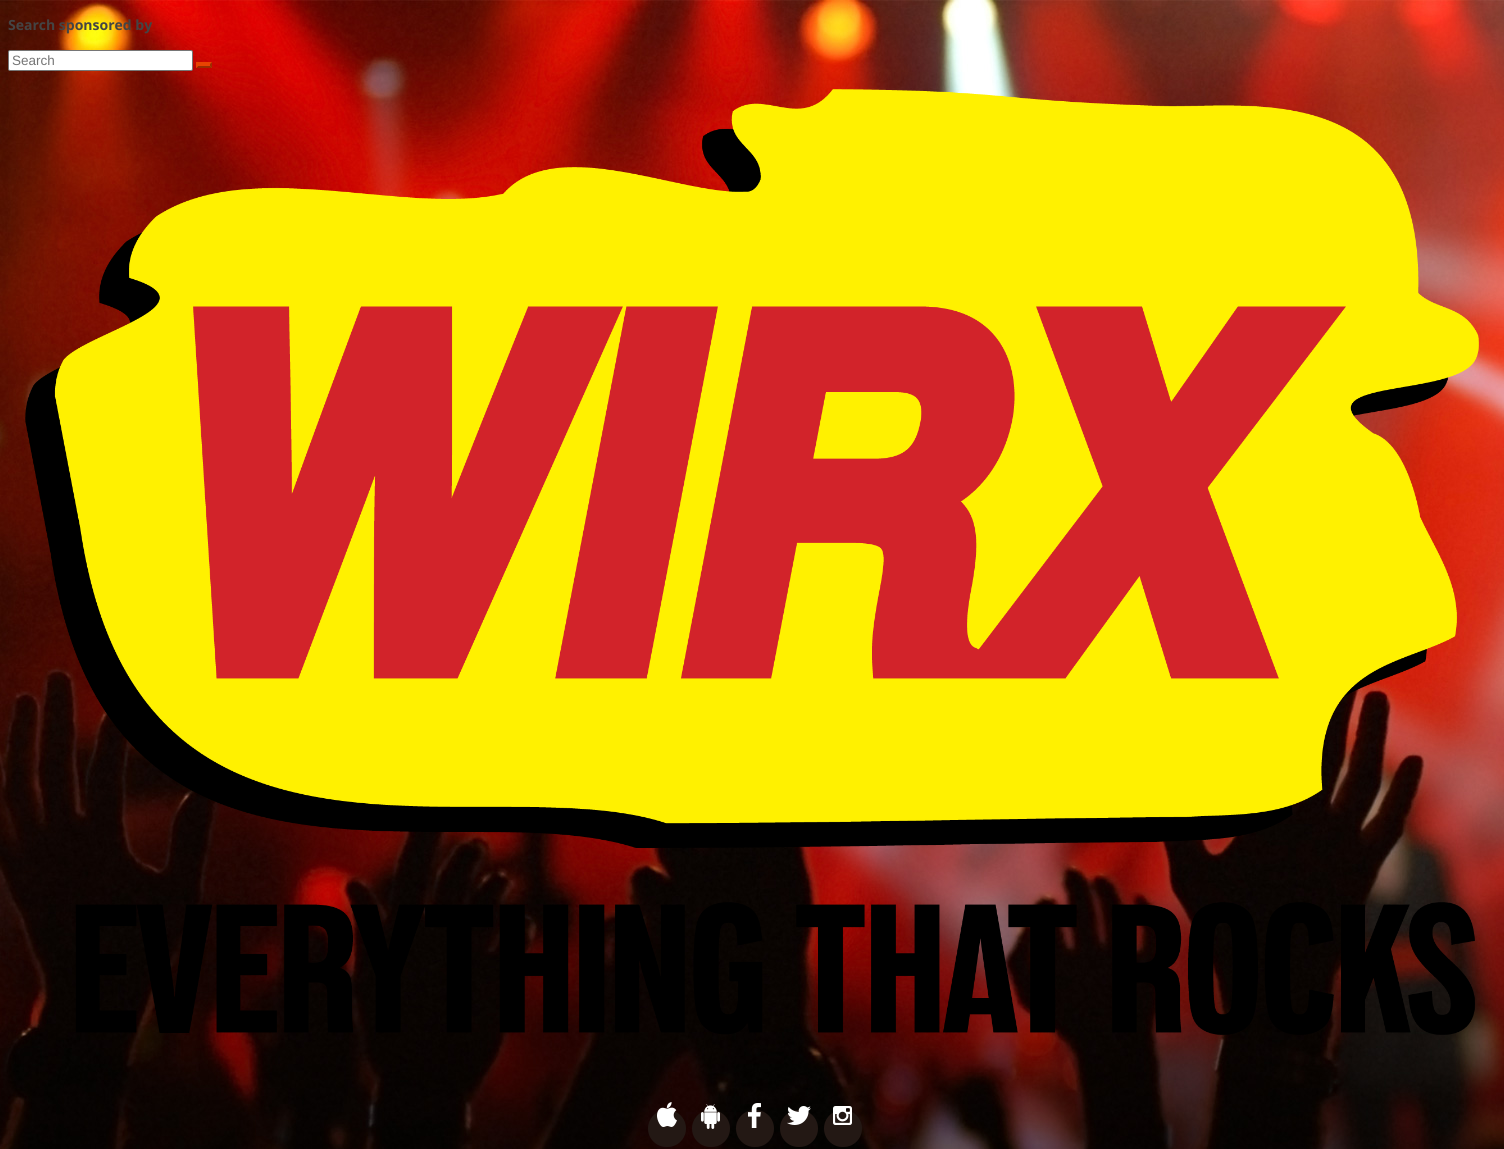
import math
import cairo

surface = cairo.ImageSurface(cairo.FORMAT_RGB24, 1504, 1149)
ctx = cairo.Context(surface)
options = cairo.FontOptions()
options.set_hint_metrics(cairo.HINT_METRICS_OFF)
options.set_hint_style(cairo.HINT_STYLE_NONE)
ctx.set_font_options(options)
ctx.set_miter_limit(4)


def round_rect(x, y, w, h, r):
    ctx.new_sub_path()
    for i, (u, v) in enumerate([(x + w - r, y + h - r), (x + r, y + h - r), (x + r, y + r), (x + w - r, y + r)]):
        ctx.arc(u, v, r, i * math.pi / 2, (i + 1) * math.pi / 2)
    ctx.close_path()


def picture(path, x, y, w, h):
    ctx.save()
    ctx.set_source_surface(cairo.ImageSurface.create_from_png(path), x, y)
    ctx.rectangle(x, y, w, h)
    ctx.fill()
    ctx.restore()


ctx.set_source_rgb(1, 1, 1)
ctx.paint()
picture("img1.png", 0, 0, 1504, 1149)
ctx.select_font_face("Open Sans", cairo.FONT_SLANT_NORMAL, cairo.FONT_WEIGHT_BOLD)
ctx.set_font_size(14)
ctx.set_source_rgb(0.267, 0.267, 0.267)
ctx.move_to(8, 30)
ctx.show_text("Search sponsored by")
ctx.set_source_rgb(1, 1, 1)
round_rect(8.5, 50.5, 184, 20, 1.5)
ctx.fill_preserve()
ctx.set_source_rgb(0.463, 0.463, 0.463)
ctx.set_line_width(1)
ctx.stroke()
ctx.select_font_face("Liberation Sans")
ctx.set_font_size(13.5)
ctx.set_source_rgb(0.459, 0.459, 0.459)
ctx.move_to(12, 65)
ctx.show_text("Search")
ctx.set_source_rgb(0.91, 0.263, 0.008)
ctx.rectangle(196, 62, 16, 6)
ctx.fill()
ctx.set_source_rgb(0.608, 0.176, 0.004)
ctx.new_path()
ctx.move_to(212, 62)
ctx.line_to(212, 68)
ctx.line_to(210, 66)
ctx.line_to(210, 64)
ctx.close_path()
ctx.fill()
ctx.new_path()
ctx.move_to(212, 68)
ctx.line_to(196, 68)
ctx.line_to(198, 66)
ctx.line_to(210, 66)
ctx.close_path()
ctx.fill()
ctx.set_source_rgb(0.91, 0.263, 0.008)
ctx.new_path()
ctx.move_to(196, 68)
ctx.line_to(196, 62)
ctx.line_to(198, 64)
ctx.line_to(198, 66)
ctx.close_path()
ctx.fill()
picture("img2.png", 25, 89, 1454, 946)
ctx.set_source_rgb(0.137, 0.094, 0.082)
round_rect(648, 1110, 38, 37, 18.5)
ctx.fill()
picture("img3.png", 657, 1102, 20, 25)
round_rect(692, 1110, 38, 37, 18.5)
ctx.fill()
picture("img4.png", 701, 1104, 19, 25)
round_rect(736, 1110, 38, 37, 18.5)
ctx.fill()
picture("img5.png", 748, 1103, 13, 25)
round_rect(780, 1110, 38, 37, 18.5)
ctx.fill()
picture("img6.png", 787, 1106, 24, 19)
round_rect(824, 1110, 38, 37, 18.5)
ctx.fill()
picture("img7.png", 833, 1106, 19, 19)
surface.write_to_png("page.png")
